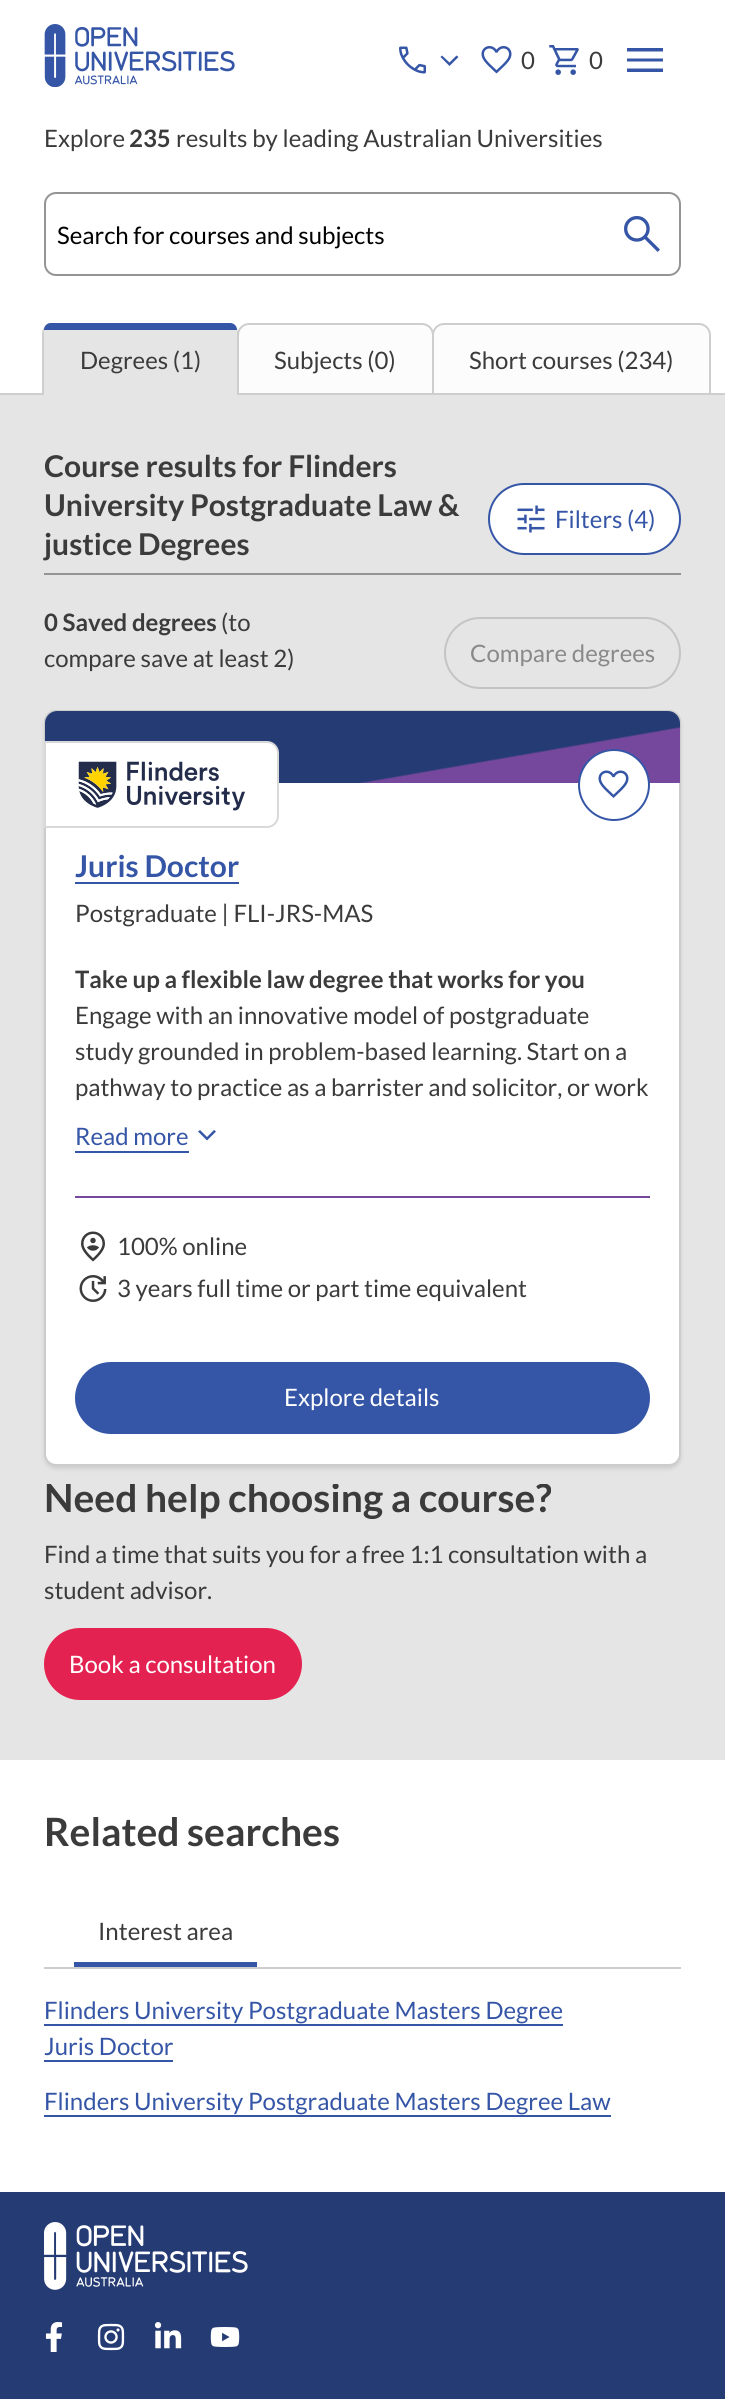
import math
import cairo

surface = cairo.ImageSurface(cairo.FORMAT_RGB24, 746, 2399)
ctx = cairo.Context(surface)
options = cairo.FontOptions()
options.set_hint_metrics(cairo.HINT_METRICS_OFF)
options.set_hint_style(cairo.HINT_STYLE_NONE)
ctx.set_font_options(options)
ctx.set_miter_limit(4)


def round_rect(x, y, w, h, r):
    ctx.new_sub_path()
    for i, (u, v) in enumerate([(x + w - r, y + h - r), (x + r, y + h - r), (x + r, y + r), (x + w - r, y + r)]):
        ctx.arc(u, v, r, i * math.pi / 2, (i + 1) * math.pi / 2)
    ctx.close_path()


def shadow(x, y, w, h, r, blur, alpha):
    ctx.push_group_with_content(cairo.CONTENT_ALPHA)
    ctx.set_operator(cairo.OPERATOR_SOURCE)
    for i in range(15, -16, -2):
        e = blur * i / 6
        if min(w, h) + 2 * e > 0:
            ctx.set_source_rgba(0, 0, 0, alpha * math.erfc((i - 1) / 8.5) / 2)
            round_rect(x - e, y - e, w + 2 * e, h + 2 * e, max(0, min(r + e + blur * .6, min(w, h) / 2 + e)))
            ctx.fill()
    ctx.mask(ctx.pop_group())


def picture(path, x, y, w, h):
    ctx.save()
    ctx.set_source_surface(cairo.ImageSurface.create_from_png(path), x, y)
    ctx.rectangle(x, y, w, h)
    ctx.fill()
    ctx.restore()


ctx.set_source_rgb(1, 1, 1)
ctx.paint()
picture("img1.png", 44, 24, 191, 63)
picture("img2.png", 399, 46, 27, 28)
ctx.set_source_rgb(0.208, 0.333, 0.651)
ctx.new_path()
ctx.move_to(456.5, 55.5)
ctx.line_to(458.5, 57)
ctx.line_to(449.5, 66)
ctx.line_to(440.5, 57)
ctx.line_to(442, 55.5)
ctx.line_to(449.5, 62.5)
ctx.close_path()
ctx.fill()
picture("img3.png", 481, 46, 31, 28)
ctx.select_font_face("Lato")
ctx.set_font_size(24)
ctx.set_source_rgb(0.231, 0.231, 0.235)
ctx.move_to(521, 69)
ctx.show_text("0")
picture("img4.png", 549, 45, 30, 30)
ctx.move_to(589, 69)
ctx.show_text("0")
ctx.set_source_rgb(0.208, 0.333, 0.651)
ctx.new_path()
ctx.move_to(627, 72)
ctx.line_to(627, 68.5)
ctx.line_to(663, 68.5)
ctx.line_to(663, 72)
ctx.close_path()
ctx.move_to(627, 61.5)
ctx.line_to(627, 58.5)
ctx.line_to(663, 58.5)
ctx.line_to(663, 61.5)
ctx.close_path()
ctx.move_to(627, 51.5)
ctx.line_to(627, 48)
ctx.line_to(663, 48)
ctx.line_to(663, 51.5)
ctx.close_path()
ctx.fill()
ctx.set_source_rgb(0.231, 0.231, 0.235)
ctx.move_to(44, 147)
ctx.show_text("Explore")
ctx.select_font_face("Lato", cairo.FONT_SLANT_NORMAL, cairo.FONT_WEIGHT_BOLD)
ctx.move_to(129, 147)
ctx.show_text("235")
ctx.select_font_face("Lato")
ctx.move_to(176, 147)
ctx.show_text("results by leading Australian Universities")
round_rect(45, 193, 635, 82, 11)
ctx.set_source_rgb(0.58, 0.58, 0.588)
ctx.stroke()
ctx.set_source_rgb(0, 0, 0)
ctx.move_to(57, 244)
ctx.show_text("Search for courses and subjects")
picture("img5.png", 624, 216, 36, 36)
ctx.set_source_rgb(0.808, 0.808, 0.808)
ctx.rectangle(0, 393, 725, 2)
ctx.fill()
ctx.set_source_rgb(0.898, 0.898, 0.902)
ctx.new_path()
ctx.move_to(55, 324)
ctx.line_to(226, 324)
ctx.curve_to(232, 324, 237, 329, 237, 335)
ctx.line_to(237, 395)
ctx.line_to(44, 395)
ctx.line_to(44, 335)
ctx.curve_to(44, 329, 49, 324, 55, 324)
ctx.close_path()
ctx.fill()
ctx.save()
ctx.rectangle(0, 323, 725, 73)
ctx.clip()
ctx.set_source_rgb(0.808, 0.808, 0.808)
ctx.set_fill_rule(cairo.FILL_RULE_EVEN_ODD)
ctx.new_path()
ctx.move_to(54, 322)
ctx.line_to(226, 322)
ctx.curve_to(233, 322, 238, 328, 238, 334)
ctx.line_to(238, 394)
ctx.line_to(42, 394)
ctx.line_to(42, 334)
ctx.curve_to(42, 328, 47, 322, 54, 322)
ctx.close_path()
ctx.move_to(54, 324)
ctx.line_to(226, 324)
ctx.curve_to(232, 324, 237, 329, 237, 334)
ctx.line_to(237, 394)
ctx.line_to(44, 394)
ctx.line_to(44, 334)
ctx.curve_to(44, 329, 48, 324, 54, 324)
ctx.close_path()
ctx.fill()
ctx.restore()
ctx.set_source_rgb(0.208, 0.333, 0.651)
ctx.new_path()
ctx.move_to(51, 323)
ctx.line_to(230, 323)
ctx.curve_to(234, 323, 237, 326, 237, 330)
ctx.line_to(44, 330)
ctx.curve_to(44, 326, 47, 323, 51, 323)
ctx.close_path()
ctx.fill()
ctx.set_source_rgb(0.231, 0.231, 0.235)
ctx.move_to(80, 369)
ctx.show_text("Degrees (1)")
ctx.set_source_rgb(0.988, 0.988, 0.988)
ctx.new_path()
ctx.move_to(249, 324)
ctx.line_to(422, 324)
ctx.curve_to(428, 324, 433, 329, 433, 335)
ctx.line_to(433, 394)
ctx.line_to(238, 394)
ctx.line_to(238, 335)
ctx.curve_to(238, 329, 243, 324, 249, 324)
ctx.close_path()
ctx.fill_preserve()
ctx.set_source_rgb(0.808, 0.808, 0.808)
ctx.stroke()
ctx.set_source_rgb(0.231, 0.231, 0.235)
ctx.move_to(274, 369)
ctx.show_text("Subjects (0)")
ctx.set_source_rgb(0.988, 0.988, 0.988)
ctx.new_path()
ctx.move_to(444, 324)
ctx.line_to(699, 324)
ctx.curve_to(705, 324, 710, 329, 710, 335)
ctx.line_to(710, 394)
ctx.line_to(433, 394)
ctx.line_to(433, 335)
ctx.curve_to(433, 329, 438, 324, 444, 324)
ctx.close_path()
ctx.fill_preserve()
ctx.set_source_rgb(0.808, 0.808, 0.808)
ctx.stroke()
ctx.set_source_rgb(0.231, 0.231, 0.235)
ctx.move_to(469, 369)
ctx.show_text("Short courses (234)")
ctx.set_source_rgb(0.898, 0.898, 0.902)
ctx.rectangle(0, 395, 725, 1365)
ctx.fill()
ctx.select_font_face("Lato", cairo.FONT_SLANT_NORMAL, cairo.FONT_WEIGHT_BOLD)
ctx.set_font_size(30)
ctx.set_source_rgb(0.231, 0.231, 0.235)
ctx.move_to(44, 477)
ctx.show_text("Course results for Flinders")
ctx.move_to(44, 516)
ctx.show_text("University Postgraduate Law &")
ctx.move_to(44, 555)
ctx.show_text("justice Degrees")
ctx.set_source_rgb(1, 1, 1)
round_rect(489, 484, 191, 70, 35)
ctx.fill_preserve()
ctx.set_source_rgb(0.208, 0.333, 0.651)
ctx.stroke()
picture("img6.png", 517, 505, 28, 28)
ctx.select_font_face("Lato")
ctx.set_font_size(24)
ctx.move_to(555, 528)
ctx.show_text("Filters (4)")
ctx.set_source_rgb(0.58, 0.58, 0.588)
ctx.rectangle(44, 573, 637, 2)
ctx.fill()
ctx.select_font_face("Lato", cairo.FONT_SLANT_NORMAL, cairo.FONT_WEIGHT_BOLD)
ctx.set_source_rgb(0.231, 0.231, 0.235)
ctx.move_to(44, 631)
ctx.show_text("0 Saved degrees")
ctx.select_font_face("Lato")
ctx.move_to(221, 631)
ctx.show_text("(to")
ctx.move_to(44, 667)
ctx.show_text("compare save at least 2)")
round_rect(445, 618, 235, 70, 35)
ctx.set_source_rgb(0.769, 0.769, 0.769)
ctx.stroke()
ctx.set_source_rgb(0.537, 0.537, 0.541)
ctx.move_to(470, 662)
ctx.show_text("Compare degrees")
ctx.set_source_rgb(0.808, 0.808, 0.808)
shadow(44, 713, 637, 756, 12, 2, 1)
ctx.set_source_rgb(1, 1, 1)
round_rect(45, 711, 635, 754, 11)
ctx.fill_preserve()
ctx.set_source_rgb(0.8, 0.8, 0.8)
ctx.stroke()
gradient = cairo.LinearGradient(378, 836, 347, 658)
gradient.add_color_stop_rgba(0.3, 0.463, 0.282, 0.616, 1)
gradient.add_color_stop_rgba(0.31, 0.145, 0.231, 0.455, 1)
ctx.set_source(gradient)
ctx.new_path()
ctx.move_to(57, 711)
ctx.line_to(668, 711)
ctx.curve_to(674.5, 711, 680, 716.5, 680, 723)
ctx.line_to(680, 783)
ctx.line_to(45, 783)
ctx.line_to(45, 723)
ctx.curve_to(45, 716.5, 50.5, 711, 57, 711)
ctx.close_path()
ctx.fill()
ctx.set_source_rgb(1, 1, 1)
ctx.new_path()
ctx.move_to(45, 742)
ctx.line_to(267, 742)
ctx.curve_to(273, 742, 278, 747, 278, 753)
ctx.line_to(278, 816)
ctx.curve_to(278, 822, 273, 827, 267, 827)
ctx.line_to(45, 827)
ctx.close_path()
ctx.fill_preserve()
ctx.set_source_rgb(0.851, 0.851, 0.851)
ctx.stroke()
picture("img7.png", 78, 761, 167, 50)
ctx.set_source_rgb(1, 1, 1)
ctx.arc(614, 785, 35, 0, 2 * math.pi)
ctx.fill_preserve()
ctx.set_source_rgb(0.208, 0.333, 0.651)
ctx.stroke()
picture("img8.png", 598, 770, 31, 28)
ctx.select_font_face("Lato", cairo.FONT_SLANT_NORMAL, cairo.FONT_WEIGHT_BOLD)
ctx.set_font_size(30)
ctx.move_to(75, 877)
ctx.show_text("Juris Doctor")
ctx.rectangle(75, 882, 164, 2)
ctx.fill()
ctx.select_font_face("Lato")
ctx.set_font_size(24)
ctx.set_source_rgb(0.231, 0.231, 0.235)
ctx.move_to(75, 922)
ctx.show_text("Postgraduate | FLI-JRS-MAS")
ctx.select_font_face("Lato", cairo.FONT_SLANT_NORMAL, cairo.FONT_WEIGHT_BOLD)
ctx.move_to(75, 988)
ctx.show_text("Take up a flexible law degree that works for you")
ctx.select_font_face("Lato")
ctx.move_to(75, 1024)
ctx.show_text("Engage with an innovative model of postgraduate")
ctx.move_to(75, 1060)
ctx.show_text("study grounded in problem-based learning. Start on a")
ctx.move_to(75, 1096)
ctx.show_text("pathway to practice as a barrister and solicitor, or work")
ctx.set_source_rgb(0.208, 0.333, 0.651)
ctx.move_to(75, 1145)
ctx.show_text("Read more")
ctx.rectangle(75, 1151, 114, 2)
ctx.fill()
ctx.new_path()
ctx.move_to(207, 1140.5)
ctx.line_to(198, 1131.5)
ctx.line_to(200, 1130)
ctx.line_to(207, 1137)
ctx.line_to(214, 1130)
ctx.line_to(216, 1131.5)
ctx.close_path()
ctx.fill()
ctx.set_source_rgb(0.463, 0.282, 0.616)
ctx.rectangle(75, 1196, 575, 2)
ctx.fill()
picture("img9.png", 81, 1231, 24, 31)
ctx.set_source_rgb(0.231, 0.231, 0.235)
ctx.move_to(117, 1255)
ctx.show_text("100% online")
picture("img10.png", 79, 1275, 28, 27)
ctx.move_to(117, 1297)
ctx.show_text("3 years full time or part time equivalent")
ctx.set_source_rgb(0.208, 0.333, 0.651)
round_rect(76, 1363, 573, 70, 35)
ctx.fill_preserve()
ctx.stroke()
ctx.set_source_rgb(1, 1, 1)
ctx.move_to(284, 1406)
ctx.show_text("Explore details")
ctx.save()
ctx.rectangle(44, 1484, 637, 216)
ctx.clip()
ctx.select_font_face("Lato", cairo.FONT_SLANT_NORMAL, cairo.FONT_WEIGHT_BOLD)
ctx.set_font_size(39)
ctx.set_source_rgb(0.231, 0.231, 0.235)
ctx.move_to(44, 1512)
ctx.show_text("Need help choosing a course?")
ctx.restore()
ctx.set_source_rgb(0.231, 0.231, 0.235)
ctx.move_to(44, 1563)
ctx.show_text("Find a time that suits you for a free 1:1 consultation with a")
ctx.move_to(44, 1599)
ctx.show_text("student advisor.")
ctx.set_source_rgb(0.894, 0.133, 0.318)
round_rect(45, 1629, 256, 70, 35)
ctx.fill_preserve()
ctx.stroke()
ctx.set_source_rgb(1, 1, 1)
ctx.move_to(69, 1673)
ctx.show_text("Book a consultation")
ctx.select_font_face("Lato", cairo.FONT_SLANT_NORMAL, cairo.FONT_WEIGHT_BOLD)
ctx.set_font_size(39)
ctx.set_source_rgb(0.231, 0.231, 0.235)
ctx.move_to(44, 1846)
ctx.show_text("Related searches")
ctx.set_source_rgb(0.808, 0.808, 0.808)
ctx.rectangle(44, 1967, 637, 2)
ctx.fill()
ctx.select_font_face("Lato")
ctx.set_font_size(24)
ctx.set_source_rgb(0.231, 0.231, 0.235)
ctx.move_to(98, 1940)
ctx.show_text("Interest area")
ctx.set_source_rgb(0.208, 0.333, 0.651)
ctx.rectangle(74, 1962, 183, 5)
ctx.fill()
ctx.move_to(44, 2019)
ctx.show_text("Flinders University Postgraduate Masters Degree")
ctx.rectangle(44, 2024, 519, 2)
ctx.fill()
ctx.move_to(44, 2055)
ctx.show_text("Juris Doctor")
ctx.rectangle(44, 2060, 129, 2)
ctx.fill()
ctx.move_to(44, 2110)
ctx.show_text("Flinders University Postgraduate Masters Degree Law")
ctx.rectangle(44, 2115, 567, 2)
ctx.fill()
ctx.set_source_rgb(0.145, 0.231, 0.455)
ctx.rectangle(0, 2192, 725, 207)
ctx.fill()
picture("img11.png", 44, 2222, 204, 68)
picture("img12.png", 45, 2322, 18, 30)
picture("img13.png", 97, 2323, 28, 28)
picture("img14.png", 154, 2322, 28, 27)
picture("img15.png", 210, 2327, 30, 20)
surface.write_to_png("page.png")
